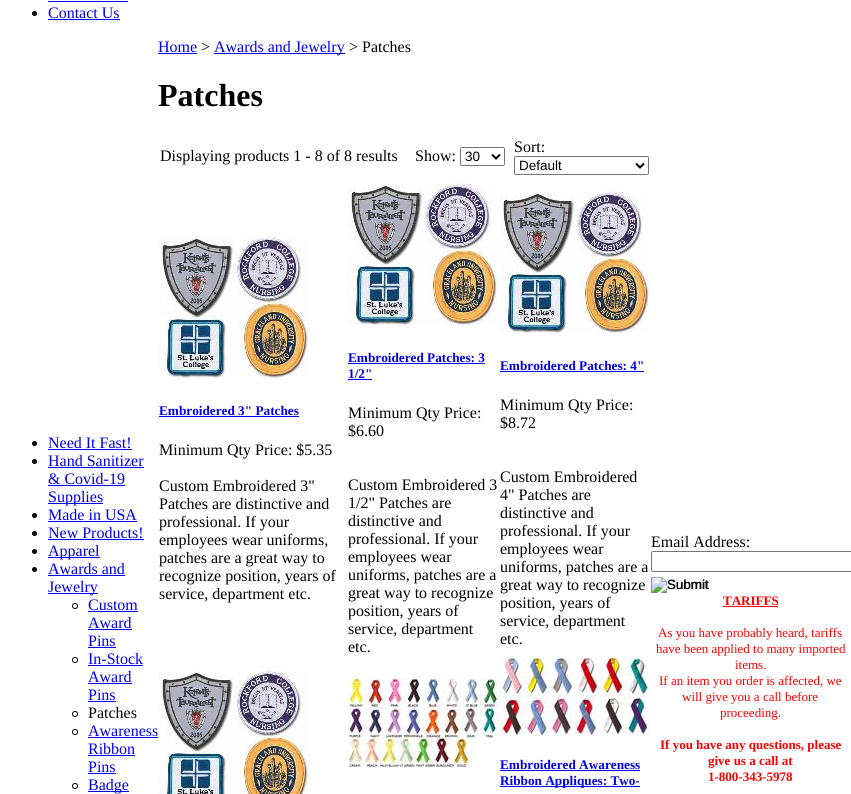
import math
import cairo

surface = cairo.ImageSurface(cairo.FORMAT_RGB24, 851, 794)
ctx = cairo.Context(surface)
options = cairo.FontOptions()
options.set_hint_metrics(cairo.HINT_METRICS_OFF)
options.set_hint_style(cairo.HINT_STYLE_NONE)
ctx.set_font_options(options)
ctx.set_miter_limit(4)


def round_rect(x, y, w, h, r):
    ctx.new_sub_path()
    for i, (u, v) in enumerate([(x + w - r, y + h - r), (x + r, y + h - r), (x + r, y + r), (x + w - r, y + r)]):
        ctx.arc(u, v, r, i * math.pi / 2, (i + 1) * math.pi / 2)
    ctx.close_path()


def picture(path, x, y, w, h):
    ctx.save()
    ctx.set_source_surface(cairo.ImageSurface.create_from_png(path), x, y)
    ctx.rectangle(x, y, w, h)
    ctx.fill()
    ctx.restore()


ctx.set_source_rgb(1, 1, 1)
ctx.paint()
ctx.set_source_rgb(0, 0, 0.933)
ctx.rectangle(48, 1, 80, 1)
ctx.fill()
ctx.set_source_rgb(0, 0, 0)
ctx.arc(34.5, 13.5, 2.5, 0, 2 * math.pi)
ctx.fill()
ctx.select_font_face("Liberation Serif")
ctx.set_font_size(16)
ctx.set_source_rgb(0, 0, 0.933)
ctx.move_to(48, 18)
ctx.show_text("Contact Us")
ctx.rectangle(48, 19, 72, 1)
ctx.fill()
ctx.set_source_rgb(0, 0, 0)
ctx.arc(34.5, 443.5, 2.5, 0, 2 * math.pi)
ctx.fill()
ctx.set_source_rgb(0, 0, 0.933)
ctx.move_to(48, 448)
ctx.show_text("Need It Fast!")
ctx.rectangle(48, 449, 84, 1)
ctx.fill()
ctx.set_source_rgb(0, 0, 0)
ctx.arc(34.5, 461.5, 2.5, 0, 2 * math.pi)
ctx.fill()
ctx.set_source_rgb(0, 0, 0.933)
ctx.move_to(48, 466)
ctx.show_text("Hand Sanitizer")
ctx.rectangle(48, 467, 96, 1)
ctx.fill()
ctx.move_to(48, 484)
ctx.show_text("& Covid-19")
ctx.rectangle(48, 485, 77, 1)
ctx.fill()
ctx.rectangle(48, 503, 55, 1)
ctx.fill()
ctx.move_to(48, 502)
ctx.show_text("Supplies")
ctx.set_source_rgb(0, 0, 0)
ctx.new_path()
ctx.arc(34.5, 515.5, 2.5, 0, 2 * math.pi)
ctx.fill()
ctx.set_source_rgb(0, 0, 0.933)
ctx.move_to(48, 520)
ctx.show_text("Made in USA")
ctx.rectangle(48, 521, 89, 1)
ctx.fill()
ctx.set_source_rgb(0, 0, 0)
ctx.arc(34.5, 533.5, 2.5, 0, 2 * math.pi)
ctx.fill()
ctx.set_source_rgb(0, 0, 0.933)
ctx.move_to(48, 538)
ctx.show_text("New Products!")
ctx.rectangle(48, 539, 96, 1)
ctx.fill()
ctx.set_source_rgb(0, 0, 0)
ctx.arc(34.5, 551.5, 2.5, 0, 2 * math.pi)
ctx.fill()
ctx.set_source_rgb(0, 0, 0.933)
ctx.rectangle(48, 557, 52, 1)
ctx.fill()
ctx.move_to(48, 556)
ctx.show_text("Apparel")
ctx.set_source_rgb(0, 0, 0)
ctx.new_path()
ctx.arc(34.5, 569.5, 2.5, 0, 2 * math.pi)
ctx.fill()
ctx.set_source_rgb(0, 0, 0.933)
ctx.move_to(48, 574)
ctx.show_text("Awards and")
ctx.rectangle(48, 575, 77, 1)
ctx.fill()
ctx.rectangle(48, 593, 50, 1)
ctx.fill()
ctx.move_to(48, 592)
ctx.show_text("Jewelry")
ctx.new_path()
ctx.arc(75, 606, 2.5, 0, 2 * math.pi)
ctx.set_source_rgb(0, 0, 0)
ctx.set_line_width(1)
ctx.stroke()
ctx.set_source_rgb(0, 0, 0.933)
ctx.move_to(88, 610)
ctx.show_text("Custom")
ctx.rectangle(88, 611, 50, 1)
ctx.fill()
ctx.move_to(88, 628)
ctx.show_text("Award")
ctx.rectangle(88, 629, 44, 1)
ctx.fill()
ctx.move_to(88, 646)
ctx.show_text("Pins")
ctx.rectangle(88, 647, 28, 1)
ctx.fill()
ctx.arc(75, 660, 2.5, 0, 2 * math.pi)
ctx.set_source_rgb(0, 0, 0)
ctx.stroke()
ctx.set_source_rgb(0, 0, 0.933)
ctx.move_to(88, 664)
ctx.show_text("In-Stock")
ctx.rectangle(88, 665, 55, 1)
ctx.fill()
ctx.move_to(88, 682)
ctx.show_text("Award")
ctx.rectangle(88, 683, 44, 1)
ctx.fill()
ctx.move_to(88, 700)
ctx.show_text("Pins")
ctx.rectangle(88, 701, 28, 1)
ctx.fill()
ctx.arc(75, 714, 2.5, 0, 2 * math.pi)
ctx.set_source_rgb(0, 0, 0)
ctx.stroke()
ctx.move_to(88, 718)
ctx.show_text("Patches")
ctx.new_path()
ctx.arc(75, 732, 2.5, 0, 2 * math.pi)
ctx.stroke()
ctx.set_source_rgb(0, 0, 0.933)
ctx.move_to(88, 736)
ctx.show_text("Awareness")
ctx.rectangle(88, 737, 70, 1)
ctx.fill()
ctx.move_to(88, 754)
ctx.show_text("Ribbon")
ctx.rectangle(88, 755, 47, 1)
ctx.fill()
ctx.move_to(88, 772)
ctx.show_text("Pins")
ctx.rectangle(88, 773, 28, 1)
ctx.fill()
ctx.arc(75, 786, 2.5, 0, 2 * math.pi)
ctx.set_source_rgb(0, 0, 0)
ctx.stroke()
ctx.set_source_rgb(0, 0, 0.933)
ctx.rectangle(88, 791, 41, 1)
ctx.fill()
ctx.move_to(88, 790)
ctx.show_text("Badge")
ctx.move_to(158, 52)
ctx.show_text("Home")
ctx.rectangle(158, 53, 39, 1)
ctx.fill()
ctx.set_source_rgb(0, 0, 0)
ctx.move_to(201, 52)
ctx.show_text(">")
ctx.set_source_rgb(0, 0, 0.933)
ctx.rectangle(214, 53, 131, 1)
ctx.fill()
ctx.move_to(214, 52)
ctx.show_text("Awards and Jewelry")
ctx.set_source_rgb(0, 0, 0)
ctx.move_to(349, 52)
ctx.show_text("> Patches")
ctx.select_font_face("Liberation Serif", cairo.FONT_SLANT_NORMAL, cairo.FONT_WEIGHT_BOLD)
ctx.set_font_size(32)
ctx.move_to(158, 106)
ctx.show_text("Patches")
ctx.select_font_face("Liberation Serif")
ctx.set_font_size(16)
ctx.move_to(160, 161)
ctx.show_text("Displaying products 1 - 8 of 8 results")
ctx.move_to(415, 161)
ctx.show_text("Show:")
round_rect(460.5, 147.5, 44, 18, 1.5)
ctx.set_source_rgb(0.463, 0.463, 0.463)
ctx.stroke()
ctx.new_path()
ctx.move_to(492, 154.5)
ctx.line_to(496, 158.5)
ctx.line_to(500, 154.5)
ctx.set_source_rgb(0, 0, 0)
ctx.set_line_width(2)
ctx.stroke()
ctx.select_font_face("Liberation Sans")
ctx.set_font_size(13.5)
ctx.move_to(465, 161)
ctx.show_text("30")
ctx.select_font_face("Liberation Serif")
ctx.set_font_size(16)
ctx.move_to(514, 152)
ctx.show_text("Sort:")
round_rect(514.5, 156.5, 134, 18, 1.5)
ctx.set_source_rgb(0.463, 0.463, 0.463)
ctx.set_line_width(1)
ctx.stroke()
ctx.new_path()
ctx.move_to(636, 163.5)
ctx.line_to(640, 167.5)
ctx.line_to(644, 163.5)
ctx.set_source_rgb(0, 0, 0)
ctx.set_line_width(2)
ctx.stroke()
ctx.select_font_face("Liberation Sans")
ctx.set_font_size(13.5)
ctx.move_to(519, 170)
ctx.show_text("Default")
picture("img1.png", 159, 231, 150, 148)
ctx.select_font_face("Liberation Serif", cairo.FONT_SLANT_NORMAL, cairo.FONT_WEIGHT_BOLD)
ctx.set_font_size(13.25)
ctx.set_source_rgb(0, 0, 0.933)
ctx.move_to(159, 415)
ctx.show_text("Embroidered 3\" Patches")
ctx.rectangle(159, 416, 140, 1)
ctx.fill()
ctx.select_font_face("Liberation Serif")
ctx.set_font_size(16)
ctx.set_source_rgb(0, 0, 0)
ctx.move_to(159, 455)
ctx.show_text("Minimum Qty Price: $5.35")
ctx.move_to(159, 491)
ctx.show_text("Custom Embroidered 3\"")
ctx.move_to(159, 509)
ctx.show_text("Patches are distinctive and")
ctx.move_to(159, 527)
ctx.show_text("professional. If your")
ctx.move_to(159, 545)
ctx.show_text("employees wear uniforms,")
ctx.move_to(159, 563)
ctx.show_text("patches are a great way to")
ctx.move_to(159, 581)
ctx.show_text("recognize position, years of")
ctx.move_to(159, 599)
ctx.show_text("service, department etc.")
picture("img1.png", 348, 178, 150, 148)
ctx.select_font_face("Liberation Serif", cairo.FONT_SLANT_NORMAL, cairo.FONT_WEIGHT_BOLD)
ctx.set_font_size(13.25)
ctx.set_source_rgb(0, 0, 0.933)
ctx.move_to(348, 362)
ctx.show_text("Embroidered Patches: 3")
ctx.rectangle(348, 363, 137, 1)
ctx.fill()
ctx.move_to(348, 378)
ctx.show_text("1/2\"")
ctx.rectangle(348, 379, 24, 1)
ctx.fill()
ctx.select_font_face("Liberation Serif")
ctx.set_font_size(16)
ctx.set_source_rgb(0, 0, 0)
ctx.move_to(348, 418)
ctx.show_text("Minimum Qty Price:")
ctx.move_to(348, 436)
ctx.show_text("$6.60")
ctx.move_to(348, 490)
ctx.show_text("Custom Embroidered 3")
ctx.move_to(348, 508)
ctx.show_text("1/2\" Patches are")
ctx.move_to(348, 526)
ctx.show_text("distinctive and")
ctx.move_to(348, 544)
ctx.show_text("professional. If your")
ctx.move_to(348, 562)
ctx.show_text("employees wear")
ctx.move_to(348, 580)
ctx.show_text("uniforms, patches are a")
ctx.move_to(348, 598)
ctx.show_text("great way to recognize")
ctx.move_to(348, 616)
ctx.show_text("position, years of")
ctx.move_to(348, 634)
ctx.show_text("service, department")
ctx.move_to(348, 652)
ctx.show_text("etc.")
picture("img1.png", 500, 186, 150, 148)
ctx.select_font_face("Liberation Serif", cairo.FONT_SLANT_NORMAL, cairo.FONT_WEIGHT_BOLD)
ctx.set_font_size(13.25)
ctx.set_source_rgb(0, 0, 0.933)
ctx.move_to(500, 370)
ctx.show_text("Embroidered Patches: 4\"")
ctx.rectangle(500, 371, 144, 1)
ctx.fill()
ctx.select_font_face("Liberation Serif")
ctx.set_font_size(16)
ctx.set_source_rgb(0, 0, 0)
ctx.move_to(500, 410)
ctx.show_text("Minimum Qty Price:")
ctx.move_to(500, 428)
ctx.show_text("$8.72")
ctx.move_to(500, 482)
ctx.show_text("Custom Embroidered")
ctx.move_to(500, 500)
ctx.show_text("4\" Patches are")
ctx.move_to(500, 518)
ctx.show_text("distinctive and")
ctx.move_to(500, 536)
ctx.show_text("professional. If your")
ctx.move_to(500, 554)
ctx.show_text("employees wear")
ctx.move_to(500, 572)
ctx.show_text("uniforms, patches are a")
ctx.move_to(500, 590)
ctx.show_text("great way to recognize")
ctx.move_to(500, 608)
ctx.show_text("position, years of")
ctx.move_to(500, 626)
ctx.show_text("service, department")
ctx.move_to(500, 644)
ctx.show_text("etc.")
picture("img2.png", 159, 665, 150, 129)
picture("img3.png", 348, 679, 150, 88)
picture("img4.png", 500, 658, 150, 77)
ctx.select_font_face("Liberation Serif", cairo.FONT_SLANT_NORMAL, cairo.FONT_WEIGHT_BOLD)
ctx.set_font_size(13.25)
ctx.set_source_rgb(0, 0, 0.933)
ctx.move_to(500, 769)
ctx.show_text("Embroidered Awareness")
ctx.rectangle(500, 770, 140, 1)
ctx.fill()
ctx.rectangle(500, 786, 140, 1)
ctx.fill()
ctx.move_to(500, 785)
ctx.show_text("Ribbon Appliques: Two-")
ctx.select_font_face("Liberation Serif")
ctx.set_font_size(16)
ctx.set_source_rgb(0, 0, 0)
ctx.move_to(651, 547)
ctx.show_text("Email Address:")
round_rect(651.5, 551.5, 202, 20, 1.5)
ctx.set_source_rgb(0.463, 0.463, 0.463)
ctx.set_line_width(1)
ctx.stroke()
picture("img5.png", 651, 577, 57, 16)
ctx.select_font_face("Liberation Sans")
ctx.set_font_size(13.5)
ctx.set_source_rgb(0, 0, 0)
ctx.move_to(667, 589)
ctx.show_text("Submit")
ctx.select_font_face("Liberation Serif", cairo.FONT_SLANT_NORMAL, cairo.FONT_WEIGHT_BOLD)
ctx.set_font_size(13)
ctx.set_source_rgb(1, 0, 0)
ctx.move_to(723, 605)
ctx.show_text("TARIFFS")
ctx.rectangle(723, 606, 55, 1)
ctx.fill()
ctx.select_font_face("Liberation Serif")
ctx.move_to(658, 637)
ctx.show_text("As you have probably heard, tariffs")
ctx.move_to(656, 653)
ctx.show_text("have been applied to many imported")
ctx.move_to(735, 669)
ctx.show_text("items.")
ctx.move_to(659, 685)
ctx.show_text("If an item you order is affected, we")
ctx.move_to(682, 701)
ctx.show_text("will give you a call before")
ctx.move_to(720, 717)
ctx.show_text("proceeding.")
ctx.select_font_face("Liberation Serif", cairo.FONT_SLANT_NORMAL, cairo.FONT_WEIGHT_BOLD)
ctx.move_to(660, 749)
ctx.show_text("If you have any questions, please")
ctx.move_to(708, 765)
ctx.show_text("give us a call at")
ctx.move_to(708, 781)
ctx.show_text("1-800-343-5978")
surface.write_to_png("page.png")
